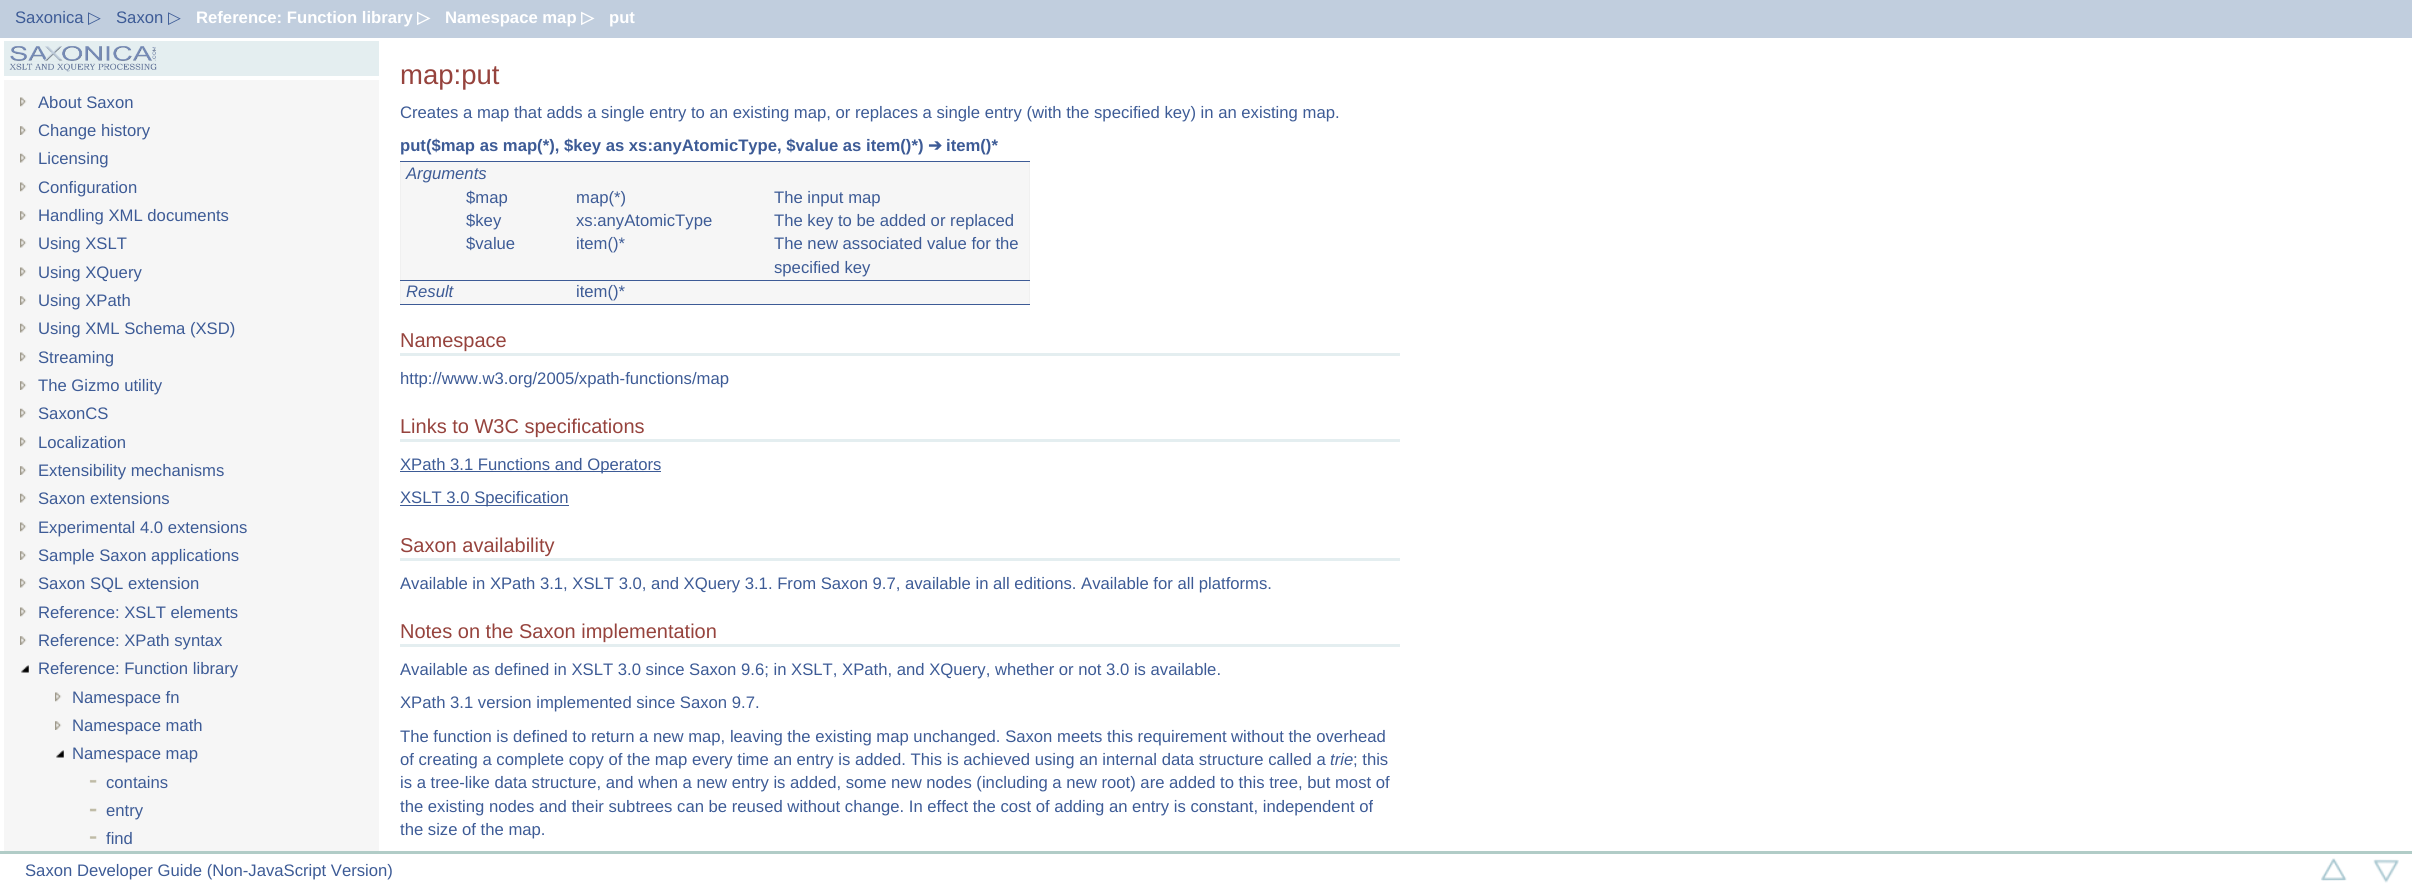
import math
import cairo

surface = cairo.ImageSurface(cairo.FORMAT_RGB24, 2412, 887)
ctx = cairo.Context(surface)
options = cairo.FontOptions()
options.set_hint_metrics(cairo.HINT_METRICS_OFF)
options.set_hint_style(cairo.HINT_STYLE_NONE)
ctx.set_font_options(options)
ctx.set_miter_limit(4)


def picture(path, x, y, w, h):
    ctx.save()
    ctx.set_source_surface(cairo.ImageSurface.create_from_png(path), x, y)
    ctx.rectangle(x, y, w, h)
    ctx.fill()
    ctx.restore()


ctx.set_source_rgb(1, 1, 1)
ctx.paint()
ctx.set_source_rgb(0.757, 0.808, 0.871)
ctx.rectangle(0, 0, 2412, 38)
ctx.fill()
ctx.select_font_face("Liberation Sans")
ctx.set_font_size(16.67)
ctx.set_source_rgb(0.239, 0.357, 0.588)
ctx.move_to(15, 23)
ctx.show_text("Saxonica")
ctx.select_font_face("DejaVu Sans")
ctx.move_to(88, 23)
ctx.show_text("▷")
ctx.select_font_face("Liberation Sans")
ctx.move_to(116, 23)
ctx.show_text("Saxon")
ctx.select_font_face("DejaVu Sans")
ctx.move_to(168, 23)
ctx.show_text("▷")
ctx.select_font_face("Liberation Sans", cairo.FONT_SLANT_NORMAL, cairo.FONT_WEIGHT_BOLD)
ctx.set_source_rgb(1, 1, 1)
ctx.move_to(196, 23)
ctx.show_text("Reference: Function library")
ctx.select_font_face("DejaVu Sans", cairo.FONT_SLANT_NORMAL, cairo.FONT_WEIGHT_BOLD)
ctx.move_to(417, 23)
ctx.show_text("▷")
ctx.select_font_face("Liberation Sans", cairo.FONT_SLANT_NORMAL, cairo.FONT_WEIGHT_BOLD)
ctx.move_to(445, 23)
ctx.show_text("Namespace map")
ctx.select_font_face("DejaVu Sans", cairo.FONT_SLANT_NORMAL, cairo.FONT_WEIGHT_BOLD)
ctx.move_to(581, 23)
ctx.show_text("▷")
ctx.select_font_face("Liberation Sans", cairo.FONT_SLANT_NORMAL, cairo.FONT_WEIGHT_BOLD)
ctx.move_to(609, 23)
ctx.show_text("put")
ctx.set_source_rgb(0.961, 0.961, 0.961)
ctx.rectangle(4, 80, 375, 771)
ctx.fill()
ctx.set_source_rgb(0.894, 0.933, 0.941)
ctx.rectangle(4, 41, 375, 35)
ctx.fill()
picture("img1.png", 9, 46, 148, 26)
picture("img2.png", 20, 97, 7, 10)
ctx.select_font_face("Liberation Sans")
ctx.set_source_rgb(0.239, 0.357, 0.588)
ctx.move_to(38, 108)
ctx.show_text("About Saxon")
picture("img3.png", 20, 126, 7, 9)
ctx.move_to(38, 136)
ctx.show_text("Change history")
picture("img4.png", 20, 153, 7, 10)
ctx.move_to(38, 164)
ctx.show_text("Licensing")
picture("img2.png", 20, 182, 7, 10)
ctx.move_to(38, 193)
ctx.show_text("Configuration")
picture("img3.png", 20, 211, 7, 9)
ctx.move_to(38, 221)
ctx.show_text("Handling XML documents")
picture("img4.png", 20, 238, 7, 10)
ctx.move_to(38, 249)
ctx.show_text("Using XSLT")
picture("img2.png", 20, 267, 7, 10)
ctx.move_to(38, 278)
ctx.show_text("Using XQuery")
picture("img3.png", 20, 296, 7, 9)
ctx.move_to(38, 306)
ctx.show_text("Using XPath")
picture("img4.png", 20, 323, 7, 10)
ctx.move_to(38, 334)
ctx.show_text("Using XML Schema (XSD)")
picture("img2.png", 20, 352, 7, 10)
ctx.move_to(38, 363)
ctx.show_text("Streaming")
picture("img3.png", 20, 381, 7, 9)
ctx.move_to(38, 391)
ctx.show_text("The Gizmo utility")
picture("img4.png", 20, 408, 7, 10)
ctx.move_to(38, 419)
ctx.show_text("SaxonCS")
picture("img2.png", 20, 437, 7, 10)
ctx.move_to(38, 448)
ctx.show_text("Localization")
picture("img3.png", 20, 466, 7, 9)
ctx.move_to(38, 476)
ctx.show_text("Extensibility mechanisms")
picture("img4.png", 20, 493, 7, 10)
ctx.move_to(38, 504)
ctx.show_text("Saxon extensions")
picture("img2.png", 20, 522, 7, 10)
ctx.move_to(38, 533)
ctx.show_text("Experimental 4.0 extensions")
picture("img3.png", 20, 551, 7, 9)
ctx.move_to(38, 561)
ctx.show_text("Sample Saxon applications")
picture("img4.png", 20, 578, 7, 10)
ctx.move_to(38, 589)
ctx.show_text("Saxon SQL extension")
picture("img2.png", 20, 607, 7, 10)
ctx.move_to(38, 618)
ctx.show_text("Reference: XSLT elements")
picture("img3.png", 20, 636, 7, 9)
ctx.move_to(38, 646)
ctx.show_text("Reference: XPath syntax")
picture("img5.png", 21, 665, 8, 8)
ctx.move_to(38, 674)
ctx.show_text("Reference: Function library")
picture("img6.png", 55, 692, 7, 10)
ctx.move_to(72, 703)
ctx.show_text("Namespace fn")
picture("img7.png", 55, 721, 7, 9)
ctx.move_to(72, 731)
ctx.show_text("Namespace math")
picture("img8.png", 56, 750, 8, 8)
ctx.move_to(72, 759)
ctx.show_text("Namespace map")
picture("img9.png", 89, 779, 8, 4)
ctx.move_to(106, 788)
ctx.show_text("contains")
picture("img10.png", 89, 808, 8, 4)
ctx.move_to(106, 816)
ctx.show_text("entry")
picture("img11.png", 89, 836, 8, 3)
ctx.move_to(106, 844)
ctx.show_text("find")
ctx.set_font_size(27.5)
ctx.set_source_rgb(0.588, 0.263, 0.239)
ctx.move_to(400, 84)
ctx.show_text("map:put")
ctx.set_font_size(16.67)
ctx.set_source_rgb(0.239, 0.357, 0.588)
ctx.move_to(400, 118)
ctx.show_text("Creates a map that adds a single entry to an existing map, or replaces a single entry (with the specified key) in an existing map.")
ctx.select_font_face("Liberation Sans", cairo.FONT_SLANT_NORMAL, cairo.FONT_WEIGHT_BOLD)
ctx.move_to(400, 151)
ctx.show_text("put($map as map(*), $key as xs:anyAtomicType, $value as item()*)")
ctx.select_font_face("DejaVu Sans", cairo.FONT_SLANT_NORMAL, cairo.FONT_WEIGHT_BOLD)
ctx.move_to(928, 151)
ctx.show_text("➔")
ctx.select_font_face("Liberation Sans", cairo.FONT_SLANT_NORMAL, cairo.FONT_WEIGHT_BOLD)
ctx.move_to(946, 151)
ctx.show_text("item()*")
ctx.set_source_rgb(0.961, 0.961, 0.961)
ctx.rectangle(401, 162, 628, 142)
ctx.fill()
ctx.set_source_rgb(0.941, 0.941, 0.941)
ctx.rectangle(1029, 161, 1, 144)
ctx.fill()
ctx.rectangle(400, 161, 1, 144)
ctx.fill()
ctx.set_source_rgb(0.239, 0.357, 0.588)
ctx.rectangle(400, 161, 630, 1)
ctx.fill()
ctx.select_font_face("Liberation Sans", cairo.FONT_SLANT_ITALIC)
ctx.move_to(406, 179)
ctx.show_text("Arguments")
ctx.select_font_face("Liberation Sans")
ctx.move_to(466, 203)
ctx.show_text("$map")
ctx.move_to(576, 203)
ctx.show_text("map(*)")
ctx.move_to(774, 203)
ctx.show_text("The input map")
ctx.move_to(466, 226)
ctx.show_text("$key")
ctx.move_to(576, 226)
ctx.show_text("xs:anyAtomicType")
ctx.move_to(774, 226)
ctx.show_text("The key to be added or replaced")
ctx.move_to(466, 249)
ctx.show_text("$value")
ctx.move_to(576, 249)
ctx.show_text("item()*")
ctx.move_to(774, 249)
ctx.show_text("The new associated value for the")
ctx.move_to(774, 273)
ctx.show_text("specified key")
ctx.select_font_face("Liberation Sans", cairo.FONT_SLANT_ITALIC)
ctx.move_to(406, 297)
ctx.show_text("Result")
ctx.rectangle(400, 280, 630, 1)
ctx.fill()
ctx.rectangle(400, 304, 630, 1)
ctx.fill()
ctx.select_font_face("Liberation Sans")
ctx.move_to(576, 297)
ctx.show_text("item()*")
ctx.set_source_rgb(0.894, 0.933, 0.941)
ctx.rectangle(400, 353, 1000, 3)
ctx.fill()
ctx.set_font_size(20)
ctx.set_source_rgb(0.588, 0.263, 0.239)
ctx.move_to(400, 347)
ctx.show_text("Namespace")
ctx.set_font_size(16.67)
ctx.set_source_rgb(0.239, 0.357, 0.588)
ctx.move_to(400, 384)
ctx.show_text("http://www.w3.org/2005/xpath-functions/map")
ctx.set_source_rgb(0.894, 0.933, 0.941)
ctx.rectangle(400, 439, 1000, 3)
ctx.fill()
ctx.set_font_size(20)
ctx.set_source_rgb(0.588, 0.263, 0.239)
ctx.move_to(400, 433)
ctx.show_text("Links to W3C specifications")
ctx.set_source_rgb(0.239, 0.357, 0.588)
ctx.rectangle(400, 471, 261, 1)
ctx.fill()
ctx.set_font_size(16.67)
ctx.move_to(400, 470)
ctx.show_text("XPath 3.1 Functions and Operators")
ctx.rectangle(400, 505, 169, 1)
ctx.fill()
ctx.move_to(400, 503)
ctx.show_text("XSLT 3.0 Specification")
ctx.set_source_rgb(0.894, 0.933, 0.941)
ctx.rectangle(400, 558, 1000, 3)
ctx.fill()
ctx.set_font_size(20)
ctx.set_source_rgb(0.588, 0.263, 0.239)
ctx.move_to(400, 552)
ctx.show_text("Saxon availability")
ctx.set_font_size(16.67)
ctx.set_source_rgb(0.239, 0.357, 0.588)
ctx.move_to(400, 589)
ctx.show_text("Available in XPath 3.1, XSLT 3.0, and XQuery 3.1. From Saxon 9.7, available in all editions. Available for all platforms.")
ctx.set_source_rgb(0.894, 0.933, 0.941)
ctx.rectangle(400, 644, 1000, 3)
ctx.fill()
ctx.set_font_size(20)
ctx.set_source_rgb(0.588, 0.263, 0.239)
ctx.move_to(400, 638)
ctx.show_text("Notes on the Saxon implementation")
ctx.set_font_size(16.67)
ctx.set_source_rgb(0.239, 0.357, 0.588)
ctx.move_to(400, 675)
ctx.show_text("Available as defined in XSLT 3.0 since Saxon 9.6; in XSLT, XPath, and XQuery, whether or not 3.0 is available.")
ctx.move_to(400, 708)
ctx.show_text("XPath 3.1 version implemented since Saxon 9.7.")
ctx.move_to(400, 742)
ctx.show_text("The function is defined to return a new map, leaving the existing map unchanged. Saxon meets this requirement")
ctx.move_to(1231, 742)
ctx.show_text("without the overhead")
ctx.move_to(400, 765)
ctx.show_text("of creating a complete copy of the map every time an entry is added. This is achieved using an internal data structure called a")
ctx.select_font_face("Liberation Sans", cairo.FONT_SLANT_ITALIC)
ctx.move_to(1330, 765)
ctx.show_text("trie")
ctx.select_font_face("Liberation Sans")
ctx.move_to(1353, 765)
ctx.show_text("; this")
ctx.move_to(400, 788)
ctx.show_text("is a tree-like data structure, and when a new entry is added, some new nodes (including a new root) are added to this tree, but most of")
ctx.move_to(400, 812)
ctx.show_text("the existing nodes and their subtrees can be reused without change. In effect the cost of adding an entry is constant, independent of")
ctx.move_to(400, 835)
ctx.show_text("the size of the map.")
ctx.set_source_rgb(0.694, 0.8, 0.78)
ctx.rectangle(0, 851, 2412, 3)
ctx.fill()
ctx.set_source_rgb(0.239, 0.357, 0.588)
ctx.move_to(25, 876)
ctx.show_text("Saxon Developer Guide (Non-JavaScript Version)")
picture("img12.png", 2321, 858, 26, 23)
picture("img13.png", 2373, 859, 26, 24)
surface.write_to_png("page.png")
